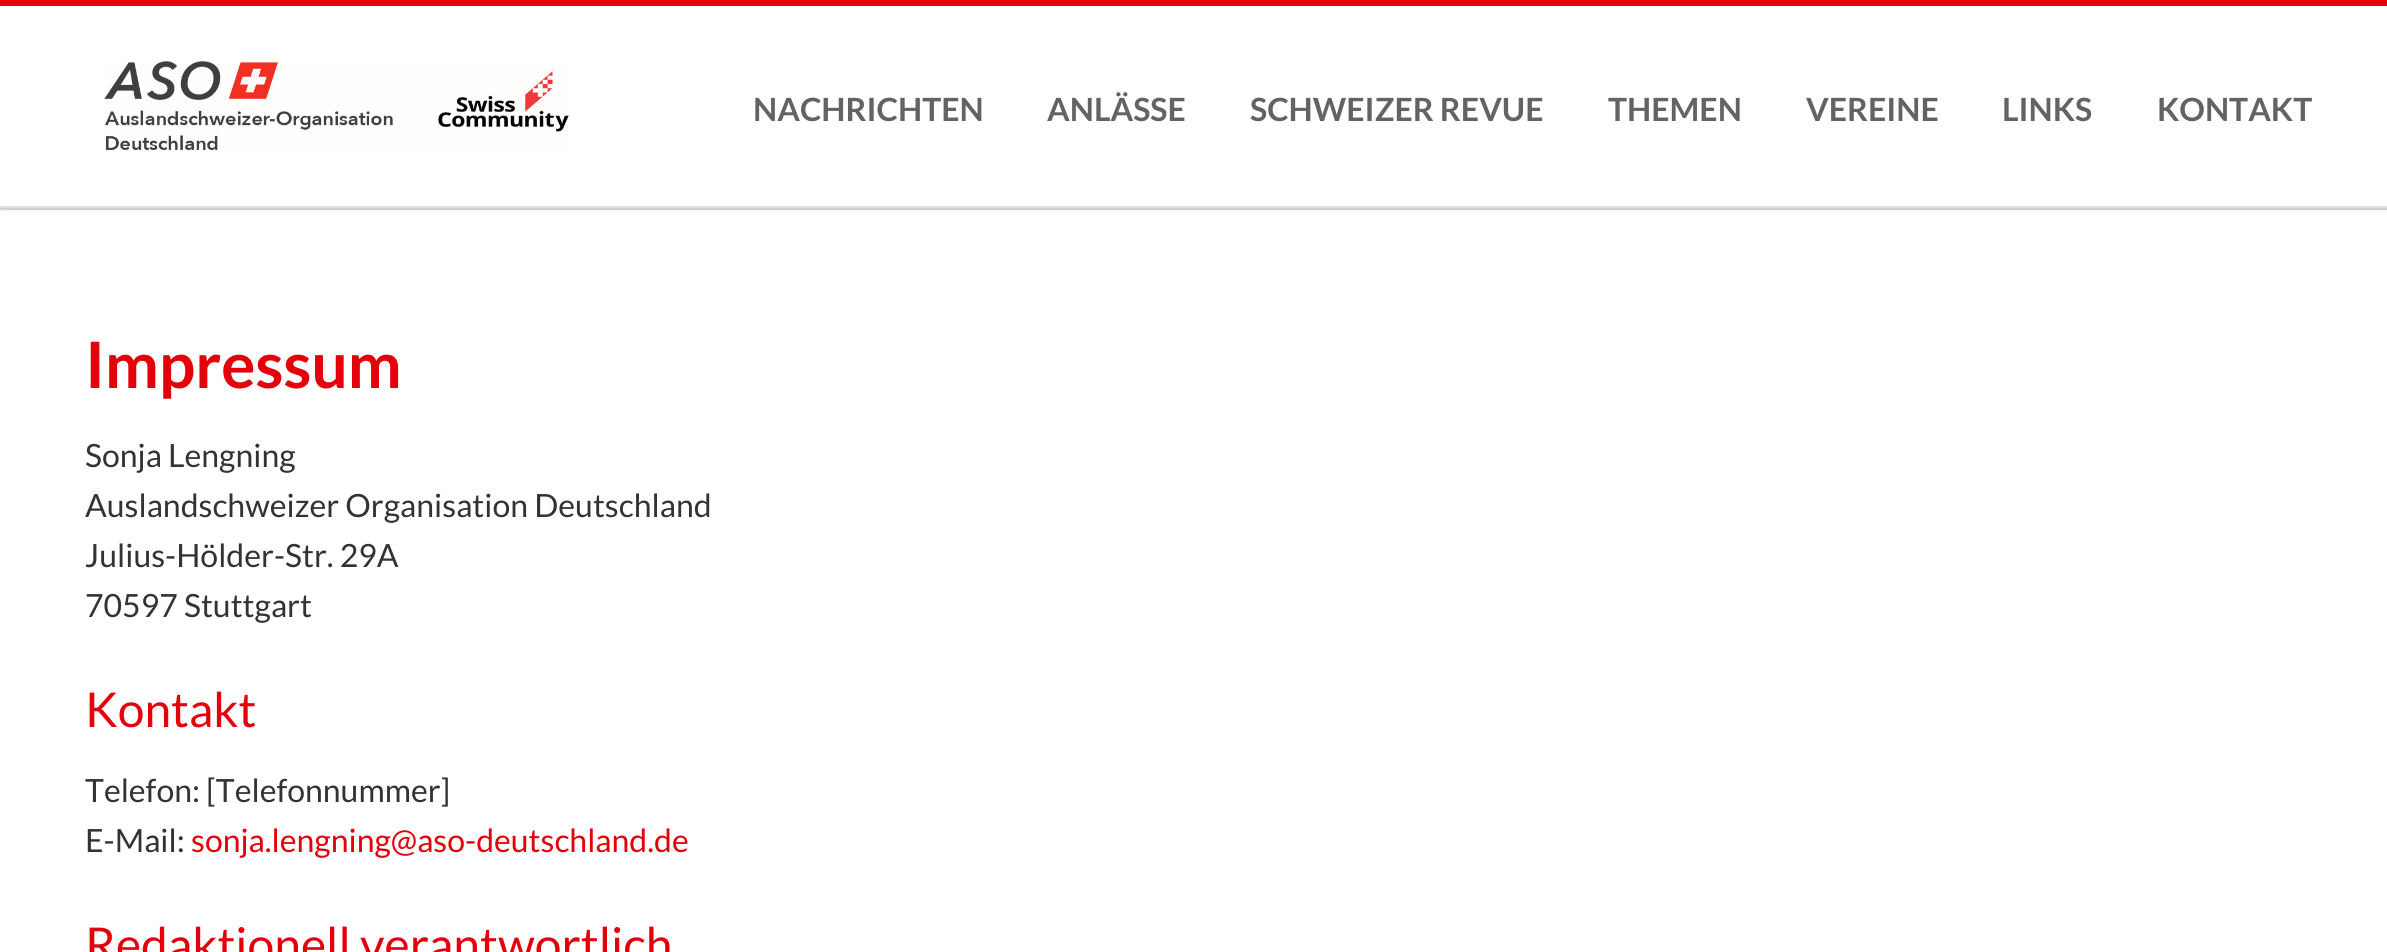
import math
import cairo

surface = cairo.ImageSurface(cairo.FORMAT_RGB24, 2387, 952)
ctx = cairo.Context(surface)
options = cairo.FontOptions()
options.set_hint_metrics(cairo.HINT_METRICS_OFF)
options.set_hint_style(cairo.HINT_STYLE_NONE)
ctx.set_font_options(options)
ctx.set_miter_limit(4)


def round_rect(x, y, w, h, r):
    ctx.new_sub_path()
    for i, (u, v) in enumerate([(x + w - r, y + h - r), (x + r, y + h - r), (x + r, y + r), (x + w - r, y + r)]):
        ctx.arc(u, v, r, i * math.pi / 2, (i + 1) * math.pi / 2)
    ctx.close_path()


def shadow(x, y, w, h, r, blur, alpha):
    ctx.push_group_with_content(cairo.CONTENT_ALPHA)
    ctx.set_operator(cairo.OPERATOR_SOURCE)
    for i in range(15, -16, -2):
        e = blur * i / 6
        if min(w, h) + 2 * e > 0:
            ctx.set_source_rgba(0, 0, 0, alpha * math.erfc((i - 1) / 8.5) / 2)
            round_rect(x - e, y - e, w + 2 * e, h + 2 * e, max(0, min(r + e + blur * .6, min(w, h) / 2 + e)))
            ctx.fill()
    ctx.mask(ctx.pop_group())


def picture(path, x, y, w, h):
    ctx.save()
    ctx.set_source_surface(cairo.ImageSurface.create_from_png(path), x, y)
    ctx.rectangle(x, y, w, h)
    ctx.fill()
    ctx.restore()


ctx.set_source_rgb(1, 1, 1)
ctx.paint()
ctx.set_source_rgb(0.89, 0, 0.043)
ctx.rectangle(0, 0, 2387, 6)
ctx.fill()
ctx.set_source_rgb(0.898, 0.871, 0.871)
ctx.rectangle(0, 208, 2387, 2)
ctx.fill()
ctx.save()
ctx.rectangle(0, 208, 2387, 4)
ctx.clip()
ctx.set_source_rgb(0, 0, 0)
shadow(0, 8, 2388, 202, 0, 2, 0.1)
ctx.restore()
ctx.rectangle(0, 206, 2387, 2)
ctx.fill()
picture("img1.png", 104, 61, 465, 89)
ctx.select_font_face("Lato", cairo.FONT_SLANT_NORMAL, cairo.FONT_WEIGHT_BOLD)
ctx.set_font_size(32)
ctx.set_source_rgb(0.388, 0.388, 0.388)
ctx.move_to(753, 121)
ctx.show_text("NACHRICHTEN")
ctx.move_to(1047, 121)
ctx.show_text("ANLÄSSE")
ctx.move_to(1250, 121)
ctx.show_text("SCHWEIZER REVUE")
ctx.move_to(1608, 121)
ctx.show_text("THEMEN")
ctx.move_to(1806, 121)
ctx.show_text("VEREINE")
ctx.move_to(2002, 121)
ctx.show_text("LINKS")
ctx.move_to(2157, 121)
ctx.show_text("KONTAKT")
ctx.set_font_size(64)
ctx.set_source_rgb(0.89, 0, 0.043)
ctx.move_to(85, 388)
ctx.show_text("Impressum")
ctx.select_font_face("Lato")
ctx.set_font_size(32)
ctx.set_source_rgb(0.2, 0.2, 0.2)
ctx.move_to(85, 467)
ctx.show_text("Sonja Lengning")
ctx.move_to(85, 517)
ctx.show_text("Auslandschweizer Organisation Deutschland")
ctx.move_to(85, 567)
ctx.show_text("Julius-Hölder-Str. 29A")
ctx.move_to(85, 617)
ctx.show_text("70597 Stuttgart")
ctx.set_font_size(48)
ctx.set_source_rgb(0.89, 0, 0.043)
ctx.move_to(85, 727)
ctx.show_text("Kontakt")
ctx.set_font_size(32)
ctx.set_source_rgb(0.2, 0.2, 0.2)
ctx.move_to(85, 802)
ctx.show_text("Telefon: [Telefonnummer]")
ctx.move_to(85, 852)
ctx.show_text("E-Mail:")
ctx.set_source_rgb(0.89, 0, 0.043)
ctx.move_to(191, 852)
ctx.show_text("sonja.lengning@aso-deutschland.de")
ctx.set_font_size(48)
ctx.move_to(85, 962)
ctx.show_text("Redaktionell verantwortlich")
surface.write_to_png("page.png")
